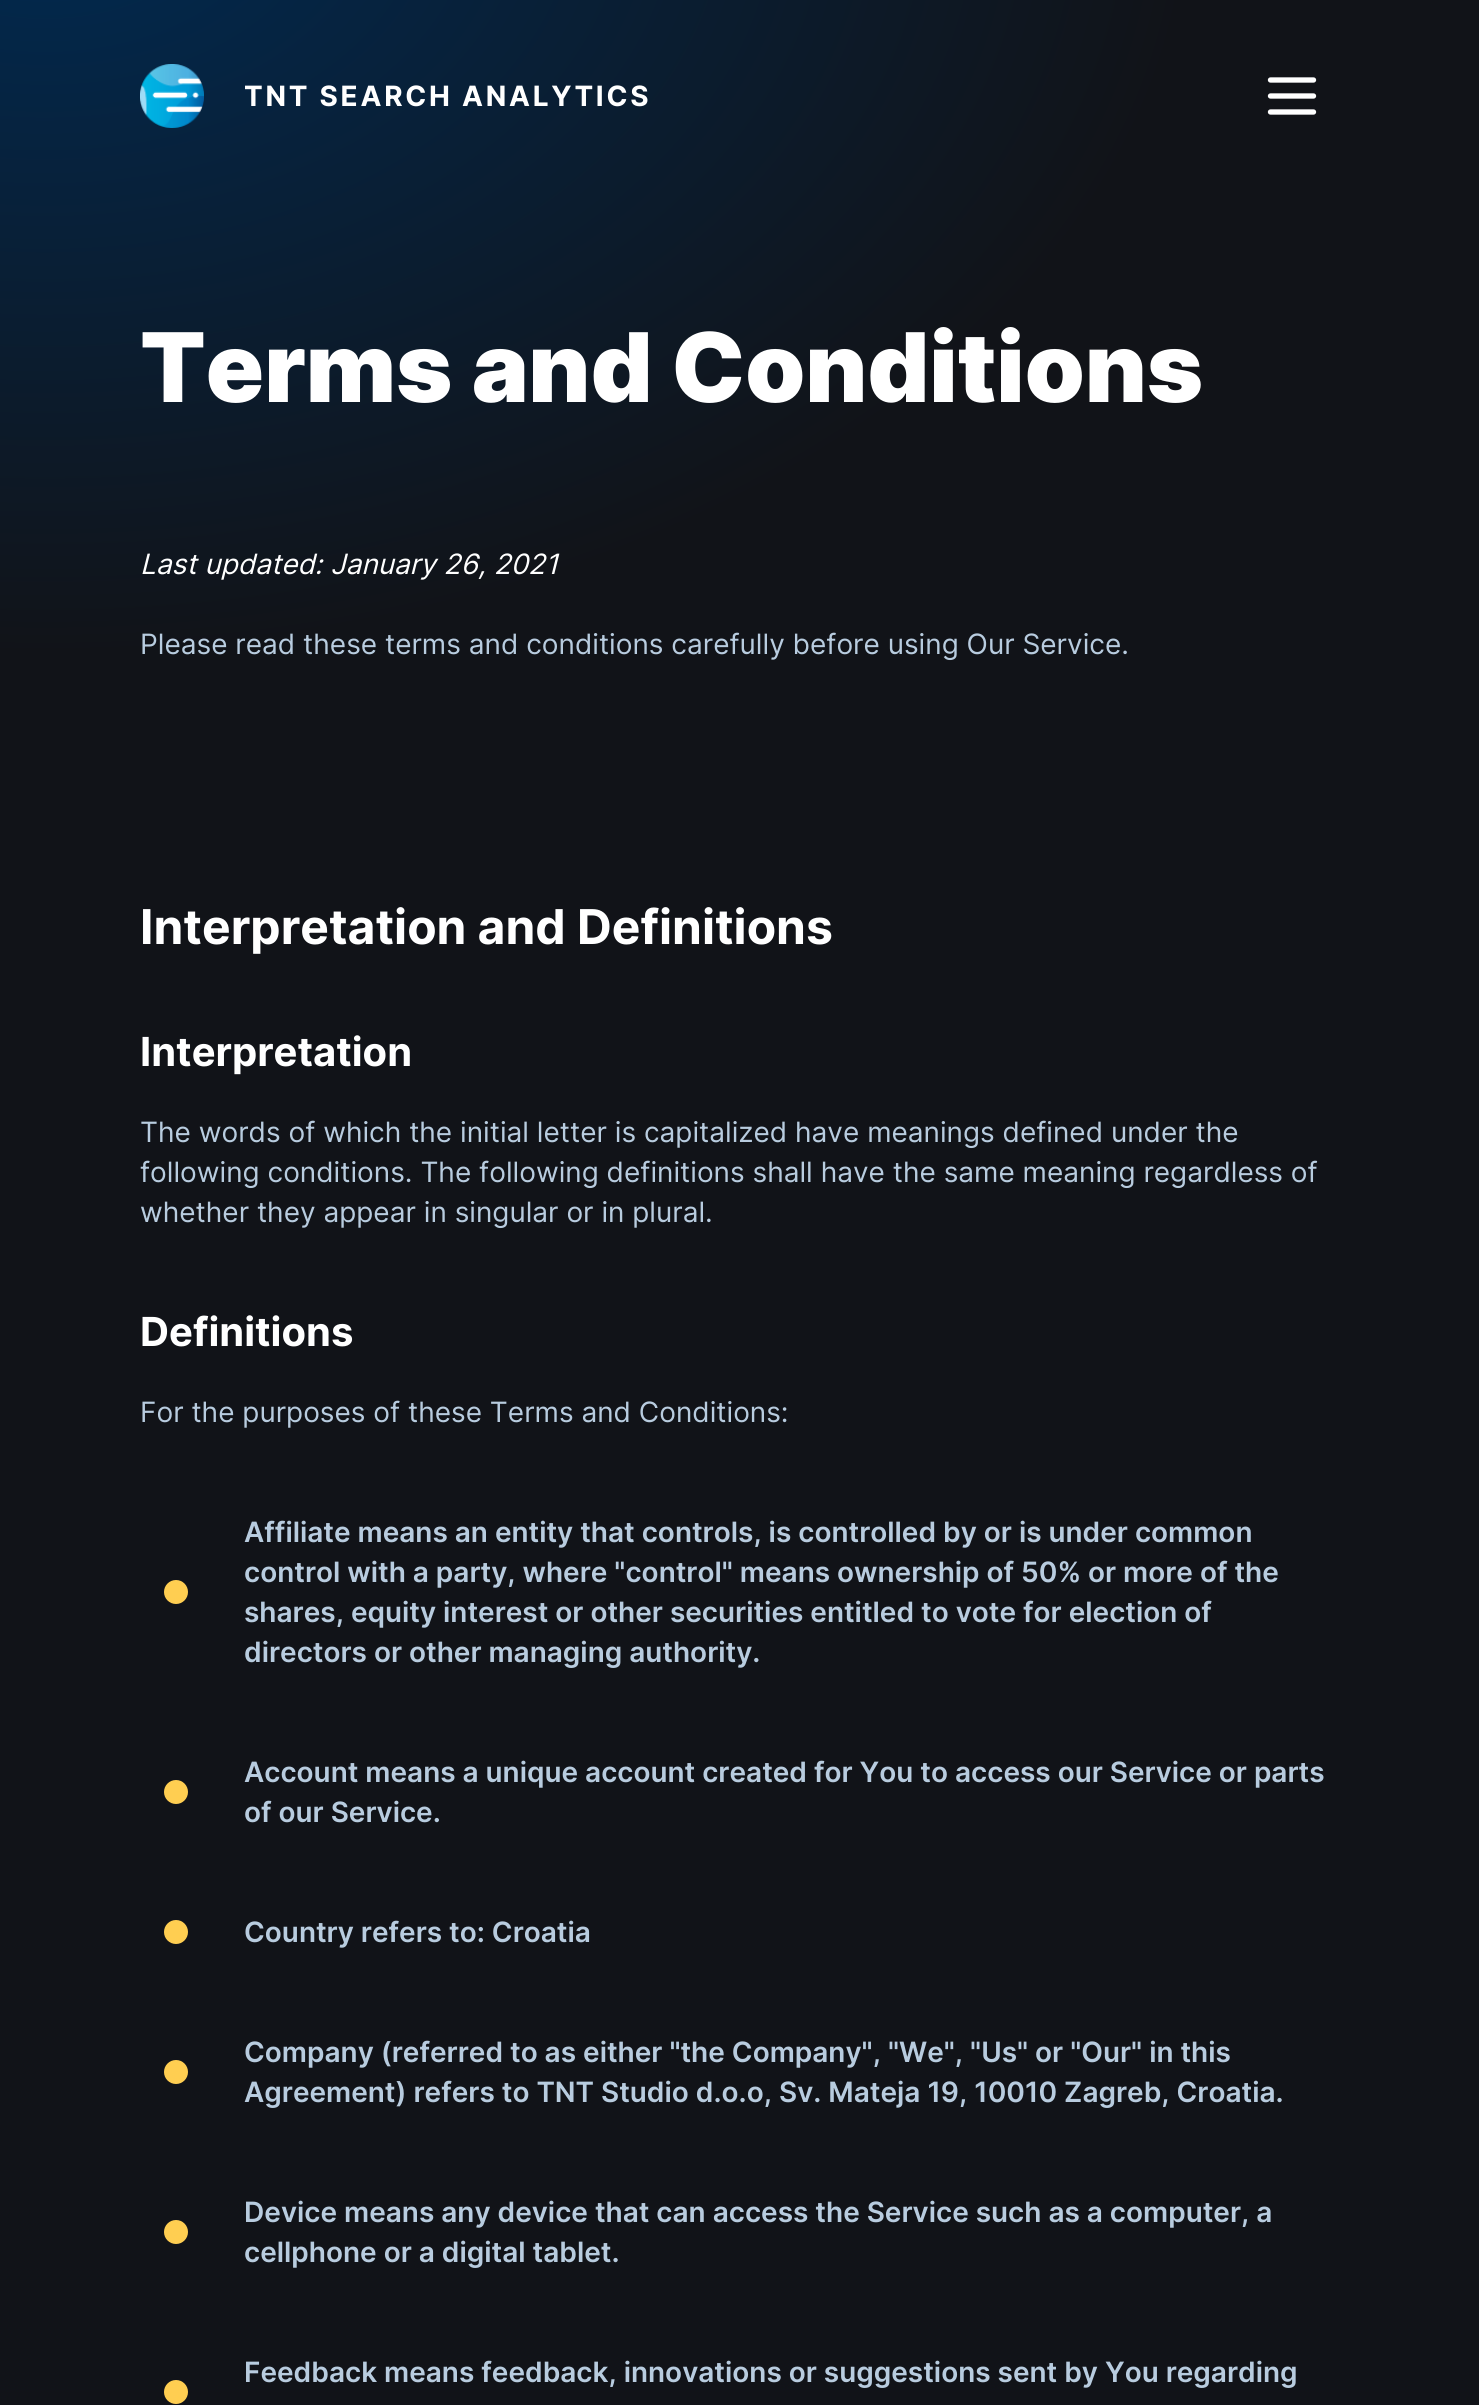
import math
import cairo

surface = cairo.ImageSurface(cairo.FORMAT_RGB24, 1479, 2405)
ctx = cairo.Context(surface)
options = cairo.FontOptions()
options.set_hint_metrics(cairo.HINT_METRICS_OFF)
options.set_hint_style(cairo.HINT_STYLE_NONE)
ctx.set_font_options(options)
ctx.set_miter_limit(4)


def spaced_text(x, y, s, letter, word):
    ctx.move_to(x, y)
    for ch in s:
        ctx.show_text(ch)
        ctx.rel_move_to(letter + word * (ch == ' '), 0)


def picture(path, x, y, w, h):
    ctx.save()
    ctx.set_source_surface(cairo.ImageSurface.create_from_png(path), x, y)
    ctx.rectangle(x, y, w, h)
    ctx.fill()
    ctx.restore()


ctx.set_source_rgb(1, 1, 1)
ctx.paint()
gradient = cairo.RadialGradient(0, 0, 0, 0, 0, 1)
gradient.set_matrix(cairo.Matrix(1 / 1155, 0, 0, 1 / 753, -1 * 42 / 1155, -1 * -98 / 753))
gradient.add_color_stop_rgba(0, 0.004, 0.165, 0.318, 1)
gradient.add_color_stop_rgba(1, 0.067, 0.075, 0.094, 1)
ctx.set_source(gradient)
ctx.rectangle(0, 0, 1479, 824)
ctx.fill()
picture("img1.png", 140, 64, 64, 64)
ctx.select_font_face("Inter", cairo.FONT_SLANT_NORMAL, cairo.FONT_WEIGHT_BOLD)
ctx.set_font_size(28)
ctx.set_source_rgb(1, 1, 1)
spaced_text(244, 106, "TNT SEARCH ANALYTICS", 2.75, 0)
ctx.new_path()
ctx.move_to(1270.5, 80)
ctx.line_to(1313.5, 80)
ctx.move_to(1270.5, 96)
ctx.line_to(1313.5, 96)
ctx.move_to(1270.5, 112)
ctx.line_to(1313.5, 112)
ctx.set_line_width(5.3)
ctx.set_line_cap(cairo.LINE_CAP_ROUND)
ctx.set_line_join(cairo.LINE_JOIN_ROUND)
ctx.stroke()
ctx.select_font_face("Inter Black")
ctx.set_font_size(96)
ctx.move_to(140, 402)
ctx.show_text("Terms and Conditions")
ctx.select_font_face("Inter", cairo.FONT_SLANT_ITALIC)
ctx.set_font_size(28)
ctx.move_to(140, 574)
ctx.show_text("Last updated: January 26, 2021")
ctx.select_font_face("Inter")
ctx.set_source_rgb(0.722, 0.8, 0.875)
ctx.move_to(140, 654)
ctx.show_text("Please read these terms and conditions carefully before using Our Service.")
ctx.set_source_rgb(0.067, 0.075, 0.094)
ctx.rectangle(0, 824, 1479, 1581)
ctx.fill()
ctx.select_font_face("Inter", cairo.FONT_SLANT_NORMAL, cairo.FONT_WEIGHT_BOLD)
ctx.set_font_size(48)
ctx.set_source_rgb(1, 1, 1)
ctx.move_to(140, 944)
ctx.show_text("Interpretation and Definitions")
ctx.set_font_size(40)
ctx.move_to(140, 1066)
ctx.show_text("Interpretation")
ctx.select_font_face("Inter")
ctx.set_font_size(28)
ctx.set_source_rgb(0.722, 0.8, 0.875)
ctx.move_to(140, 1142)
ctx.show_text("The words of which the initial letter is capitalized have meanings defined under the")
ctx.move_to(140, 1182)
ctx.show_text("following conditions. The following definitions shall have the same meaning regardless of")
ctx.move_to(140, 1222)
ctx.show_text("whether they appear in singular or in plural.")
ctx.select_font_face("Inter", cairo.FONT_SLANT_NORMAL, cairo.FONT_WEIGHT_BOLD)
ctx.set_font_size(40)
ctx.set_source_rgb(1, 1, 1)
ctx.move_to(140, 1346)
ctx.show_text("Definitions")
ctx.select_font_face("Inter")
ctx.set_font_size(28)
ctx.set_source_rgb(0.722, 0.8, 0.875)
ctx.move_to(140, 1422)
ctx.show_text("For the purposes of these Terms and Conditions:")
ctx.select_font_face("Inter SemiBold")
ctx.move_to(244, 1542)
ctx.show_text("Affiliate means an entity that controls, is controlled by or is under common")
ctx.move_to(244, 1582)
ctx.show_text("control with a party, where \"control\" means ownership of 50% or more of the")
ctx.set_source_rgb(1, 0.808, 0.318)
ctx.new_path()
ctx.arc(176, 1592, 12, 0, 2 * math.pi)
ctx.fill()
ctx.set_source_rgb(0.722, 0.8, 0.875)
ctx.move_to(244, 1622)
ctx.show_text("shares, equity interest or other securities entitled to vote for election of")
ctx.move_to(244, 1662)
ctx.show_text("directors or other managing authority.")
ctx.move_to(244, 1782)
ctx.show_text("Account means a unique account created for You to access our Service or parts")
ctx.set_source_rgb(1, 0.808, 0.318)
ctx.new_path()
ctx.arc(176, 1792, 12, 0, 2 * math.pi)
ctx.fill()
ctx.set_source_rgb(0.722, 0.8, 0.875)
ctx.move_to(244, 1822)
ctx.show_text("of our Service.")
ctx.set_source_rgb(1, 0.808, 0.318)
ctx.new_path()
ctx.arc(176, 1932, 12, 0, 2 * math.pi)
ctx.fill()
ctx.set_source_rgb(0.722, 0.8, 0.875)
ctx.move_to(244, 1942)
ctx.show_text("Country refers to: Croatia")
ctx.move_to(244, 2062)
ctx.show_text("Company (referred to as either \"the Company\", \"We\", \"Us\" or \"Our\" in this")
ctx.set_source_rgb(1, 0.808, 0.318)
ctx.new_path()
ctx.arc(176, 2072, 12, 0, 2 * math.pi)
ctx.fill()
ctx.set_source_rgb(0.722, 0.8, 0.875)
ctx.move_to(244, 2102)
ctx.show_text("Agreement) refers to TNT Studio d.o.o, Sv. Mateja 19, 10010 Zagreb, Croatia.")
ctx.move_to(244, 2222)
ctx.show_text("Device means any device that can access the Service such as a computer, a")
ctx.set_source_rgb(1, 0.808, 0.318)
ctx.new_path()
ctx.arc(176, 2232, 12, 0, 2 * math.pi)
ctx.fill()
ctx.set_source_rgb(0.722, 0.8, 0.875)
ctx.move_to(244, 2262)
ctx.show_text("cellphone or a digital tablet.")
ctx.move_to(244, 2382)
ctx.show_text("Feedback means feedback, innovations or suggestions sent by You regarding")
ctx.set_source_rgb(1, 0.808, 0.318)
ctx.new_path()
ctx.arc(176, 2392, 12, 0, 2 * math.pi)
ctx.fill()
surface.write_to_png("page.png")
